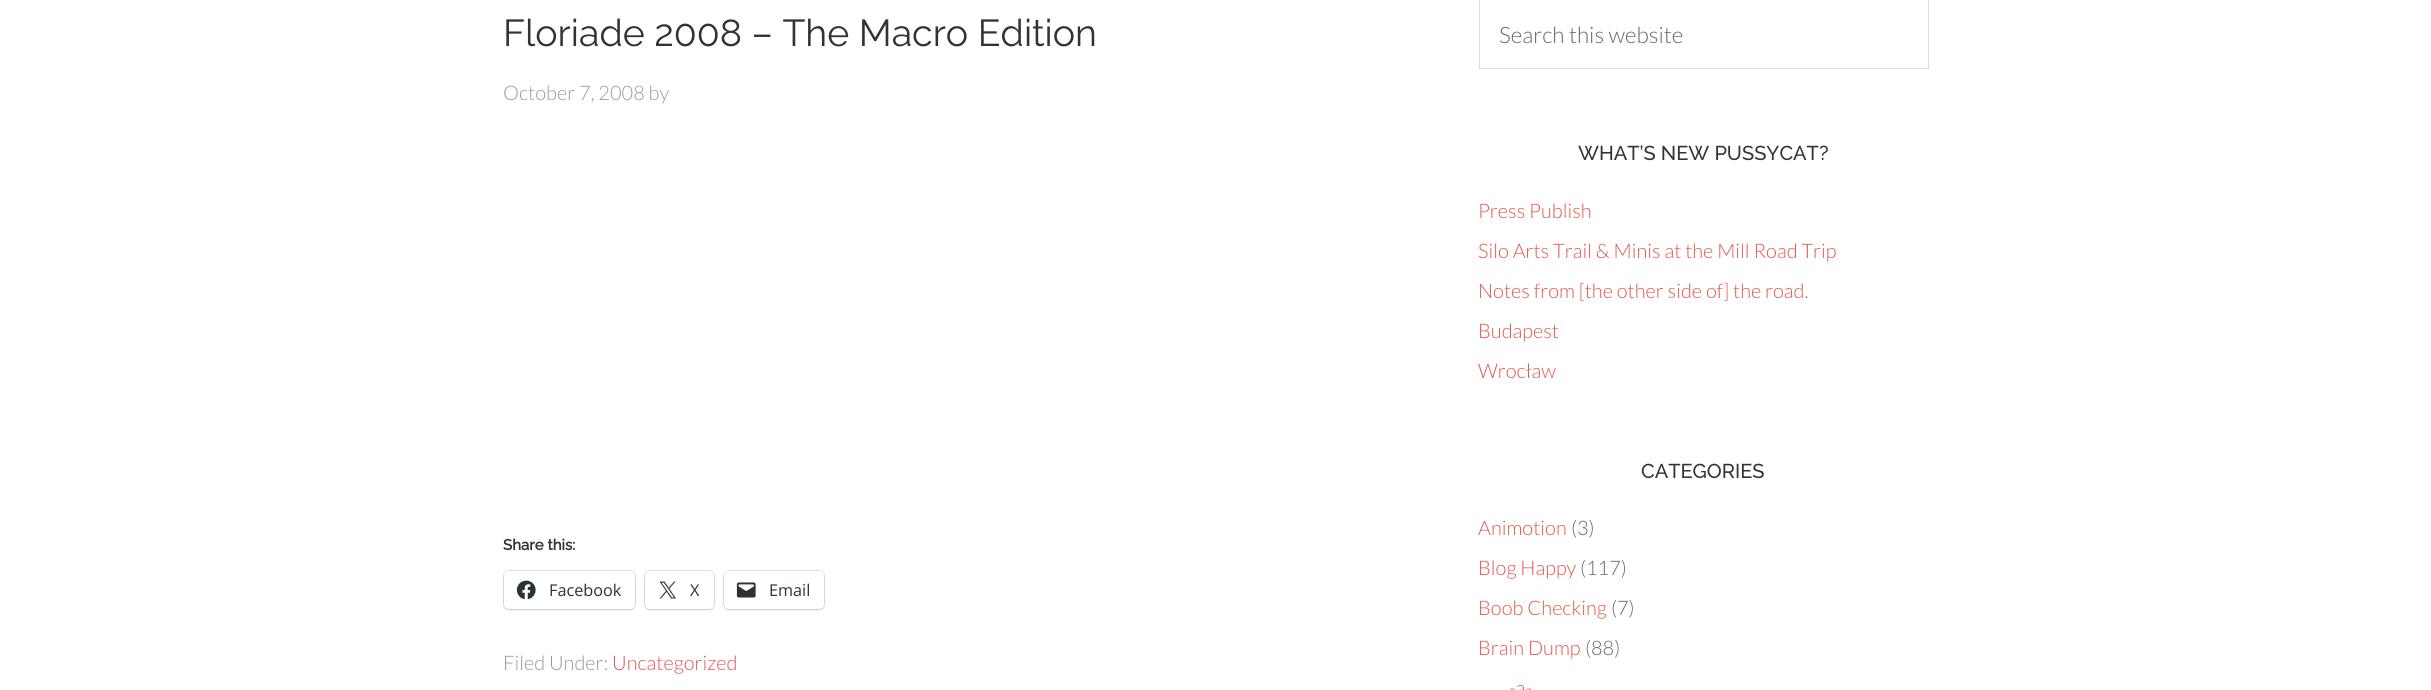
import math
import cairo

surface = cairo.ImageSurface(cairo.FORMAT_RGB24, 2431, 690)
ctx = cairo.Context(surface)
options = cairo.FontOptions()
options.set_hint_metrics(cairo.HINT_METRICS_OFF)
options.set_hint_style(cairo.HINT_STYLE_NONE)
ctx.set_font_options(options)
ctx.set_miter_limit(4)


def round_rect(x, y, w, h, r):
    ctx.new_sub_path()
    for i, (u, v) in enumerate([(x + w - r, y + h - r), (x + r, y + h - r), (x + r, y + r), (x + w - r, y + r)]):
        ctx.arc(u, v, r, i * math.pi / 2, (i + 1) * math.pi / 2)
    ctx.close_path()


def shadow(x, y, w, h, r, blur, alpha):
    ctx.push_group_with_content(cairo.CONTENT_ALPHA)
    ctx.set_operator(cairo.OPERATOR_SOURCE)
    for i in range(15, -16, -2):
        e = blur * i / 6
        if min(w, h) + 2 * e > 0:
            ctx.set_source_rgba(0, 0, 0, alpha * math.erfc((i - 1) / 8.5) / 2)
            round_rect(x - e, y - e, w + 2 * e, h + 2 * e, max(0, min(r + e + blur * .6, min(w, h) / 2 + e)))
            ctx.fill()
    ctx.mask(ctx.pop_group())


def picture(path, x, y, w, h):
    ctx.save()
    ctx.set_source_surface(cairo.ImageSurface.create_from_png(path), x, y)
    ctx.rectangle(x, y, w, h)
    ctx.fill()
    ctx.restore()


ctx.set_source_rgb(1, 1, 1)
ctx.paint()
ctx.select_font_face("Raleway")
ctx.set_font_size(37.5)
ctx.set_source_rgb(0.2, 0.2, 0.2)
ctx.move_to(503, 46)
ctx.show_text("Floriade 2008 – The Macro Edition")
ctx.select_font_face("Lato Light")
ctx.set_font_size(20)
ctx.set_source_rgb(0.6, 0.6, 0.6)
ctx.move_to(503, 100)
ctx.show_text("October 7, 2008 by")
ctx.select_font_face("Raleway", cairo.FONT_SLANT_NORMAL, cairo.FONT_WEIGHT_BOLD)
ctx.set_font_size(15)
ctx.set_source_rgb(0.2, 0.2, 0.2)
ctx.move_to(503, 550)
ctx.show_text("Share this:")
round_rect(503.5, 570.5, 132, 39, 5.5)
ctx.set_source_rgb(0.878, 0.878, 0.878)
ctx.set_line_width(1)
ctx.stroke()
ctx.set_source_rgb(0, 0, 0)
shadow(504, 573, 131, 37, 5, 1, 0.12)
ctx.set_source_rgb(1, 1, 1)
round_rect(504, 571, 131, 38, 5)
ctx.fill()
picture("img1.png", 516, 580, 20, 20)
ctx.select_font_face("Open Sans")
ctx.set_font_size(16.25)
ctx.set_source_rgb(0.173, 0.2, 0.22)
ctx.move_to(549, 596)
ctx.show_text("Facebook")
round_rect(644.5, 570.5, 70, 39, 5.5)
ctx.set_source_rgb(0.878, 0.878, 0.878)
ctx.stroke()
ctx.set_source_rgb(0, 0, 0)
shadow(645, 573, 69, 37, 5, 1, 0.12)
ctx.set_source_rgb(1, 1, 1)
round_rect(645, 571, 69, 38, 5)
ctx.fill()
picture("img2.png", 659, 581, 17, 18)
ctx.set_source_rgb(0.173, 0.2, 0.22)
ctx.move_to(690, 596)
ctx.show_text("X")
round_rect(723.5, 570.5, 101, 39, 5.5)
ctx.set_source_rgb(0.878, 0.878, 0.878)
ctx.stroke()
ctx.set_source_rgb(0, 0, 0)
shadow(724, 573, 100, 37, 5, 1, 0.12)
ctx.set_source_rgb(1, 1, 1)
round_rect(724, 571, 100, 38, 5)
ctx.fill()
picture("img3.png", 736, 582, 20, 16)
ctx.set_source_rgb(0.173, 0.2, 0.22)
ctx.move_to(769, 596)
ctx.show_text("Email")
ctx.select_font_face("Lato Light")
ctx.set_font_size(20)
ctx.set_source_rgb(0.6, 0.6, 0.6)
ctx.move_to(503, 670)
ctx.show_text("Filed Under:")
ctx.set_source_rgb(0.898, 0.333, 0.306)
ctx.move_to(612, 670)
ctx.show_text("Uncategorized")
ctx.rectangle(1479.5, -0.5, 449, 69)
ctx.set_source_rgb(0.867, 0.867, 0.867)
ctx.stroke()
ctx.set_font_size(22.5)
ctx.set_source_rgb(0.4, 0.4, 0.4)
ctx.move_to(1499, 43)
ctx.show_text("Search this website")
ctx.select_font_face("Raleway Medium")
ctx.set_font_size(20)
ctx.set_source_rgb(0.2, 0.2, 0.2)
ctx.move_to(1578, 160)
ctx.show_text("WHAT’S NEW PUSSYCAT?")
ctx.select_font_face("Lato Light")
ctx.set_source_rgb(0.898, 0.333, 0.306)
ctx.move_to(1478, 218)
ctx.show_text("Press Publish")
ctx.move_to(1478, 258)
ctx.show_text("Silo Arts Trail & Minis at the Mill Road Trip")
ctx.move_to(1478, 298)
ctx.show_text("Notes from [the other side of] the road.")
ctx.move_to(1478, 338)
ctx.show_text("Budapest")
ctx.move_to(1478, 378)
ctx.show_text("Wrocław")
ctx.select_font_face("Raleway Medium")
ctx.set_source_rgb(0.2, 0.2, 0.2)
ctx.move_to(1641, 478)
ctx.show_text("CATEGORIES")
ctx.select_font_face("Lato Light")
ctx.set_source_rgb(0.898, 0.333, 0.306)
ctx.move_to(1478, 535)
ctx.show_text("Animotion")
ctx.set_source_rgb(0.4, 0.4, 0.4)
ctx.move_to(1571, 535)
ctx.show_text("(3)")
ctx.set_source_rgb(0.898, 0.333, 0.306)
ctx.move_to(1478, 575)
ctx.show_text("Blog Happy")
ctx.set_source_rgb(0.4, 0.4, 0.4)
ctx.move_to(1580, 575)
ctx.show_text("(117)")
ctx.set_source_rgb(0.898, 0.333, 0.306)
ctx.move_to(1478, 615)
ctx.show_text("Boob Checking")
ctx.set_source_rgb(0.4, 0.4, 0.4)
ctx.move_to(1611, 615)
ctx.show_text("(7)")
ctx.set_source_rgb(0.898, 0.333, 0.306)
ctx.move_to(1478, 655)
ctx.show_text("Brain Dump")
ctx.set_source_rgb(0.4, 0.4, 0.4)
ctx.move_to(1585, 655)
ctx.show_text("(88)")
ctx.set_source_rgb(0.898, 0.333, 0.306)
ctx.move_to(1509, 695)
ctx.show_text("-a-")
surface.write_to_png("page.png")
